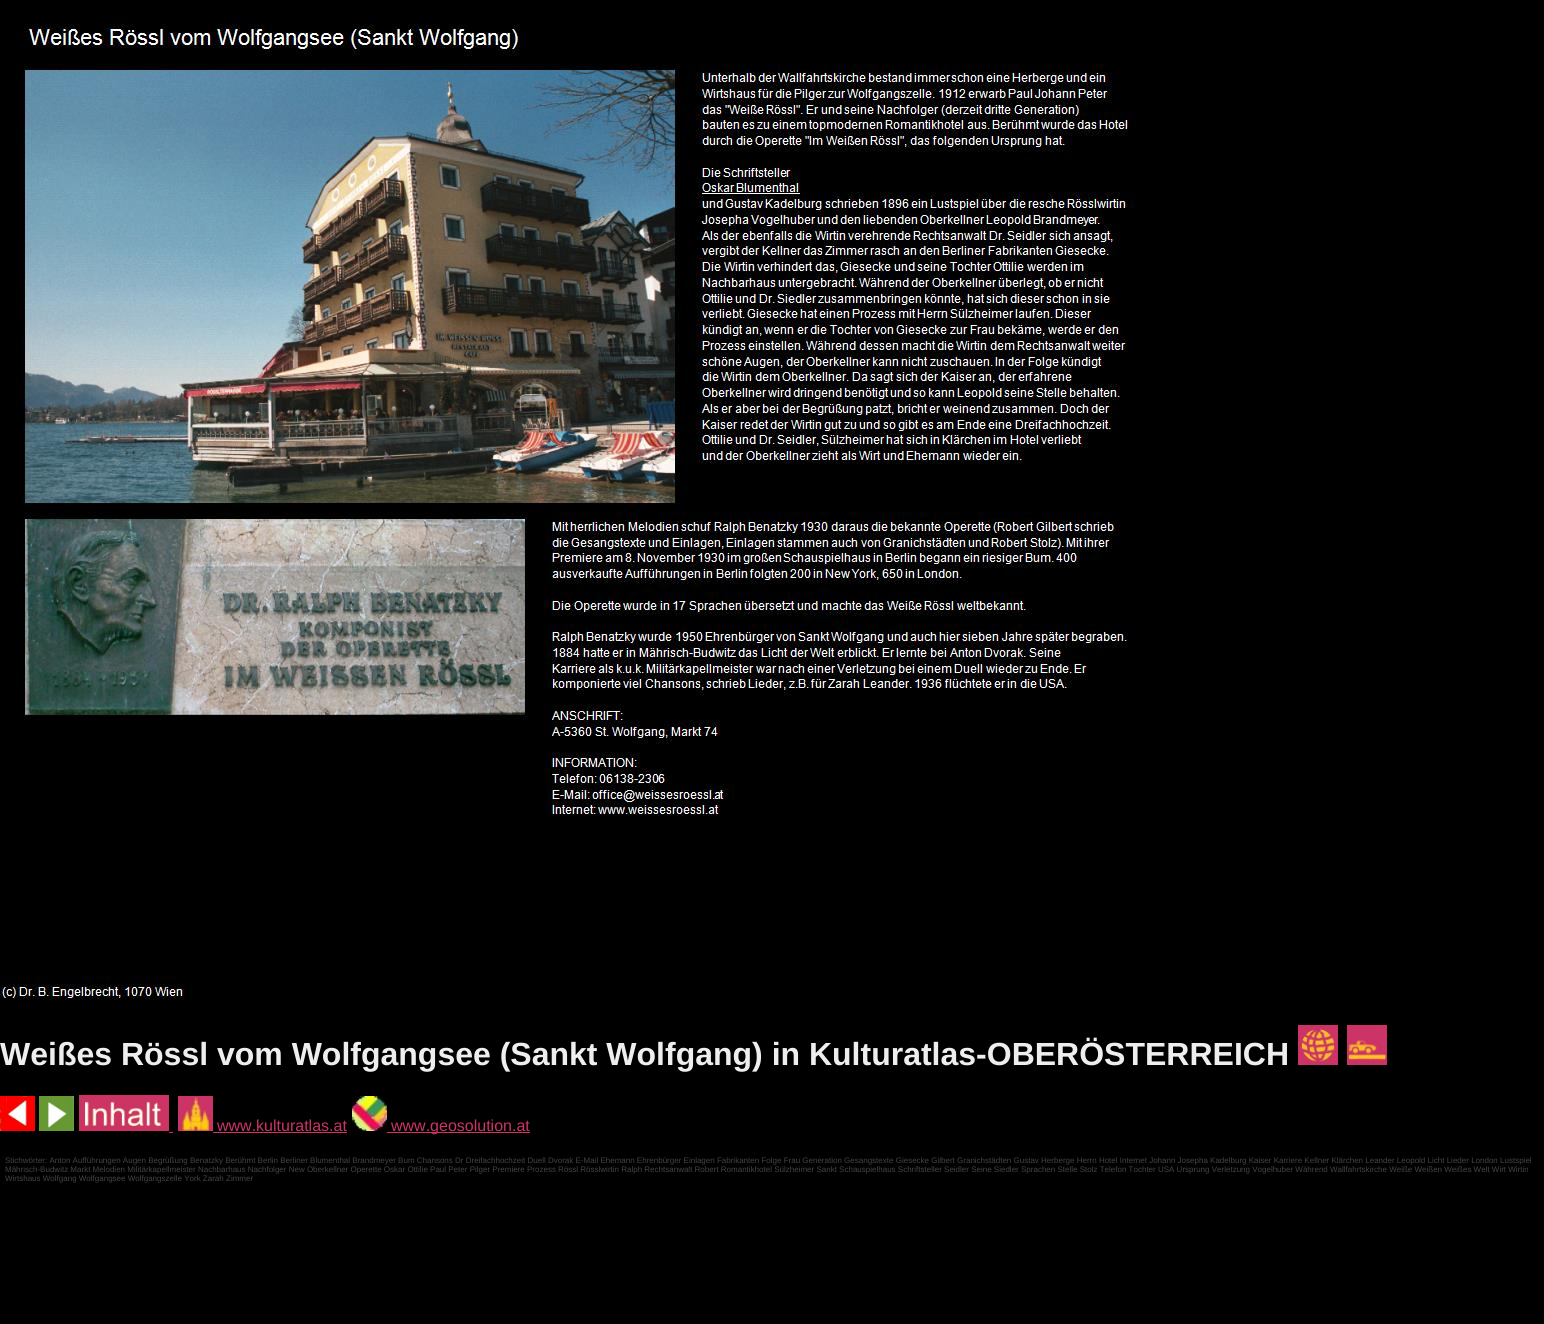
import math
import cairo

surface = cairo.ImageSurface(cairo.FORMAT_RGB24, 1544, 1324)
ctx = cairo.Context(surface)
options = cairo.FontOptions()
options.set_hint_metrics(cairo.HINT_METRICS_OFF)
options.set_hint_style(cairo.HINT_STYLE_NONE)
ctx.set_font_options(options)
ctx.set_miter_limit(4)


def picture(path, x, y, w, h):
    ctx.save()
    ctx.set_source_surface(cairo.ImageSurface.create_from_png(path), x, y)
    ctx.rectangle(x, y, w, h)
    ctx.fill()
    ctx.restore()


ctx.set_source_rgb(0, 0, 0)
ctx.paint()
picture("img1.png", 0, 16, 1136, 984)
ctx.select_font_face("Liberation Sans", cairo.FONT_SLANT_NORMAL, cairo.FONT_WEIGHT_BOLD)
ctx.set_font_size(32)
ctx.set_source_rgb(0.933, 0.933, 0.933)
ctx.move_to(0, 1065)
ctx.show_text("Weißes Rössl vom Wolfgangsee (Sankt Wolfgang) in Kulturatlas-OBERÖSTERREICH")
picture("img2.png", 1298, 1025, 40, 40)
picture("img3.png", 1347, 1025, 40, 40)
picture("img4.png", 0, 1096, 35, 35)
picture("img5.png", 39, 1096, 35, 35)
picture("img6.png", 79, 1095, 90, 36)
ctx.set_source_rgb(0.8, 0.2, 0.4)
ctx.rectangle(169, 1132, 4, 1)
ctx.fill()
picture("img7.png", 178, 1096, 35, 35)
ctx.select_font_face("Liberation Sans")
ctx.set_font_size(16)
ctx.move_to(217, 1131)
ctx.show_text("www.kulturatlas.at")
ctx.rectangle(213, 1132, 134, 1)
ctx.fill()
picture("img8.png", 352, 1096, 35, 35)
ctx.rectangle(387, 1132, 143, 1)
ctx.fill()
ctx.move_to(391, 1131)
ctx.show_text("www.geosolution.at")
ctx.set_font_size(8)
ctx.set_source_rgb(0.267, 0.267, 0.267)
ctx.move_to(5, 1163)
ctx.show_text("Stichwörter: Anton Aufführungen Augen Begrüßung Benatzky Berühmt Berlin Berliner Blumenthal Brandmeyer Bum Chansons Dr Dreifachhochzeit Duell Dvorak E-Mail Ehemann Ehrenbürger Einlagen Fabrikanten Folge Frau Generation Gesangstexte Giesecke Gilbert Granichstädten Gustav Herberge Herrn Hotel Internet Johann Josepha Kadelburg Kaiser Karriere Kellner Klärchen Leander Leopold Licht Lieder London Lustspiel")
ctx.move_to(5, 1172)
ctx.show_text("Mährisch-Budwitz Markt Melodien Militärkapellmeister Nachbarhaus Nachfolger New Oberkellner Operette Oskar Ottilie Paul Peter Pilger Premiere Prozess Rössl Rösslwirtin Ralph Rechtsanwalt Robert Romantikhotel Sülzheimer Sankt Schauspielhaus Schriftsteller Seidler Seine Siedler Sprachen Stelle Stolz Telefon Tochter USA Ursprung Verletzung Vogelhuber Während Wallfahrtskirche Weiße Weißen Weißes Welt Wirt Wirtin")
ctx.move_to(5, 1181)
ctx.show_text("Wirtshaus Wolfgang Wolfgangsee Wolfgangszelle York Zarah Zimmer")
surface.write_to_png("page.png")
